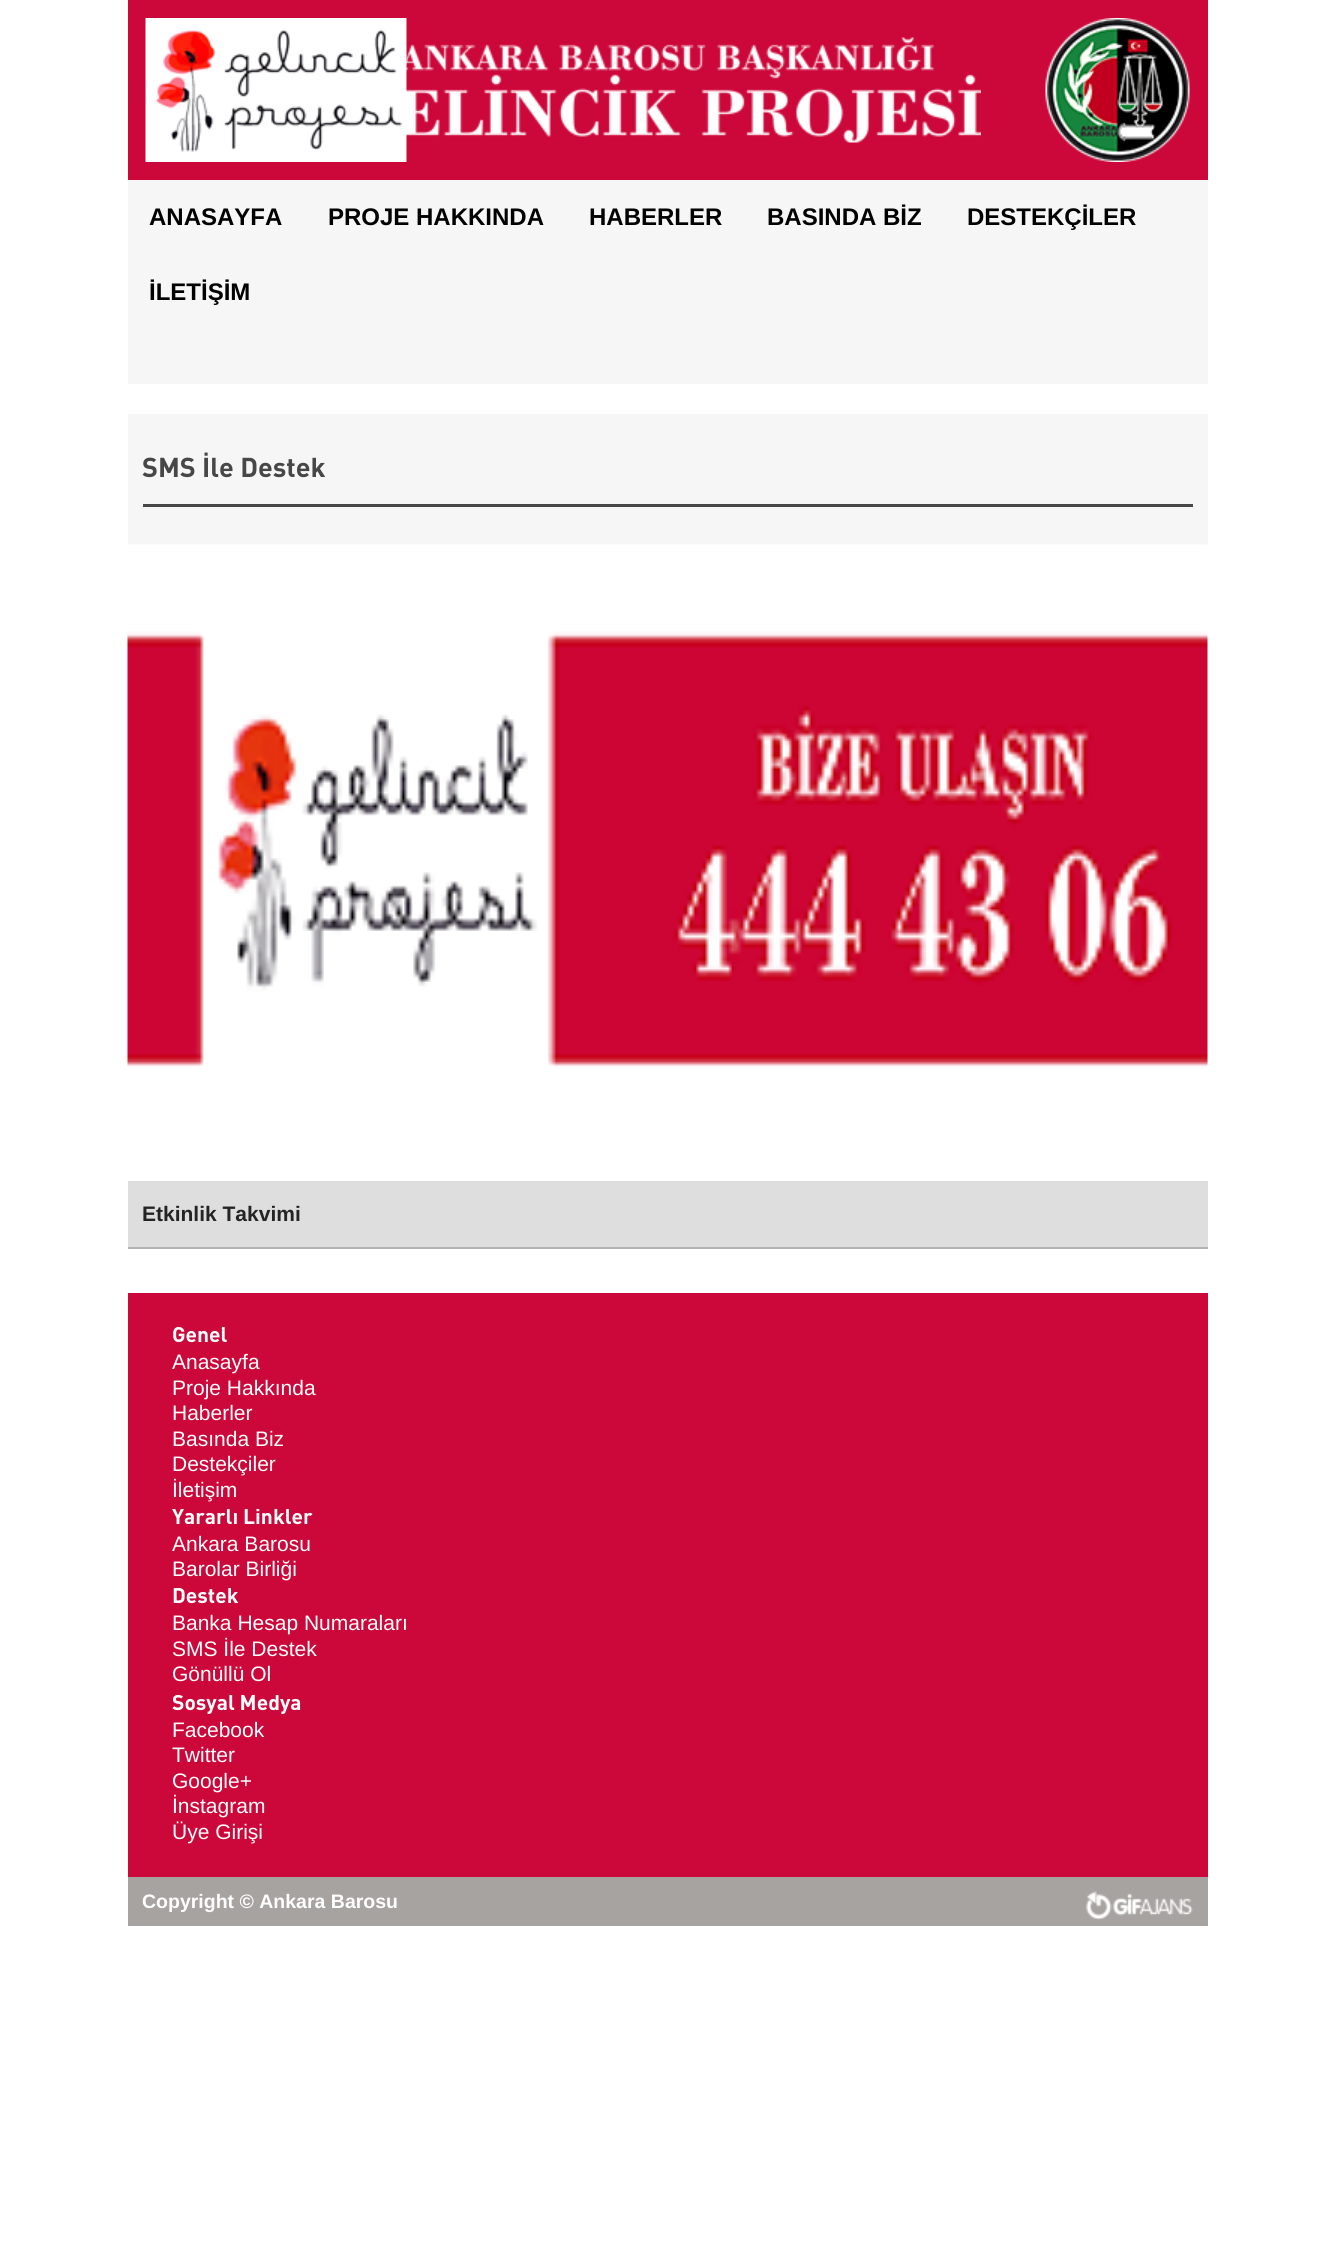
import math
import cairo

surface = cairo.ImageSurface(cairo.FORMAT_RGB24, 1333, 2248)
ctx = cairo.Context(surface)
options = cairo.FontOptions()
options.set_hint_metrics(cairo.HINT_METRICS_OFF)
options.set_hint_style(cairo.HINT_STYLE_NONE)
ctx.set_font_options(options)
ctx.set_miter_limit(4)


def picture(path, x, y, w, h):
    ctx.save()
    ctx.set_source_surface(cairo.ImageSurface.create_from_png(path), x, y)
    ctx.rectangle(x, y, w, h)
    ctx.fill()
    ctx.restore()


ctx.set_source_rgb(1, 1, 1)
ctx.paint()
ctx.set_source_rgb(0.8, 0.031, 0.224)
ctx.rectangle(128, 0, 1080, 180)
ctx.fill()
picture("img1.png", 406, 37, 575, 106)
picture("img2.png", 145, 18, 262, 144)
picture("img3.png", 1045, 18, 145, 144)
ctx.set_source_rgb(0.961, 0.961, 0.961)
ctx.rectangle(128, 180, 1080, 204)
ctx.fill()
ctx.select_font_face("Liberation Sans", cairo.FONT_SLANT_NORMAL, cairo.FONT_WEIGHT_BOLD)
ctx.set_font_size(24)
ctx.set_source_rgb(0, 0, 0)
ctx.move_to(149, 225)
ctx.show_text("ANASAYFA")
ctx.move_to(328, 225)
ctx.show_text("PROJE HAKKINDA")
ctx.move_to(589, 225)
ctx.show_text("HABERLER")
ctx.move_to(767, 225)
ctx.show_text("BASINDA BİZ")
ctx.move_to(967, 225)
ctx.show_text("DESTEKÇİLER")
ctx.move_to(149, 300)
ctx.show_text("İLETİŞİM")
ctx.set_source_rgb(0.961, 0.961, 0.961)
ctx.rectangle(128, 414, 1080, 131)
ctx.fill()
ctx.set_source_rgb(0.278, 0.278, 0.278)
ctx.rectangle(143, 504, 1050, 3)
ctx.fill()
ctx.select_font_face("DIN", cairo.FONT_SLANT_NORMAL, cairo.FONT_WEIGHT_BOLD)
ctx.set_font_size(27)
ctx.move_to(142, 477)
ctx.show_text("SMS İle Destek")
picture("img4.png", 127, 544, 1081, 524)
ctx.set_source_rgb(0.871, 0.871, 0.871)
ctx.rectangle(128, 1181, 1080, 66)
ctx.fill()
ctx.set_source_rgb(0.702, 0.702, 0.702)
ctx.rectangle(128, 1247, 1080, 2)
ctx.fill()
ctx.select_font_face("Liberation Sans", cairo.FONT_SLANT_NORMAL, cairo.FONT_WEIGHT_BOLD)
ctx.set_font_size(21)
ctx.set_source_rgb(0.141, 0.141, 0.141)
ctx.move_to(142, 1221)
ctx.show_text("Etkinlik Takvimi")
ctx.set_source_rgb(0.8, 0.031, 0.224)
ctx.rectangle(128, 1293, 1080, 584)
ctx.fill()
ctx.select_font_face("DIN", cairo.FONT_SLANT_NORMAL, cairo.FONT_WEIGHT_BOLD)
ctx.set_source_rgb(1, 1, 1)
ctx.move_to(172, 1342)
ctx.show_text("Genel")
ctx.select_font_face("Liberation Sans")
ctx.move_to(172, 1369)
ctx.show_text("Anasayfa")
ctx.move_to(172, 1395)
ctx.show_text("Proje Hakkında")
ctx.move_to(172, 1420)
ctx.show_text("Haberler")
ctx.move_to(172, 1446)
ctx.show_text("Basında Biz")
ctx.move_to(172, 1471)
ctx.show_text("Destekçiler")
ctx.move_to(172, 1497)
ctx.show_text("İletişim")
ctx.select_font_face("DIN", cairo.FONT_SLANT_NORMAL, cairo.FONT_WEIGHT_BOLD)
ctx.move_to(172, 1524)
ctx.show_text("Yararlı Linkler")
ctx.select_font_face("Liberation Sans")
ctx.move_to(172, 1551)
ctx.show_text("Ankara Barosu")
ctx.move_to(172, 1576)
ctx.show_text("Barolar Birliği")
ctx.select_font_face("DIN", cairo.FONT_SLANT_NORMAL, cairo.FONT_WEIGHT_BOLD)
ctx.move_to(172, 1603)
ctx.show_text("Destek")
ctx.select_font_face("Liberation Sans")
ctx.move_to(172, 1630)
ctx.show_text("Banka Hesap Numaraları")
ctx.move_to(172, 1656)
ctx.show_text("SMS İle Destek")
ctx.move_to(172, 1681)
ctx.show_text("Gönüllü Ol")
ctx.select_font_face("DIN", cairo.FONT_SLANT_NORMAL, cairo.FONT_WEIGHT_BOLD)
ctx.move_to(172, 1710)
ctx.show_text("Sosyal Medya")
ctx.select_font_face("Liberation Sans")
ctx.move_to(172, 1737)
ctx.show_text("Facebook")
ctx.move_to(172, 1762)
ctx.show_text("Twitter")
ctx.move_to(172, 1788)
ctx.show_text("Google+")
ctx.move_to(172, 1813)
ctx.show_text("İnstagram")
ctx.move_to(172, 1839)
ctx.show_text("Üye Girişi")
ctx.set_source_rgb(0.655, 0.639, 0.627)
ctx.rectangle(128, 1877, 1080, 49)
ctx.fill()
ctx.select_font_face("Liberation Sans", cairo.FONT_SLANT_NORMAL, cairo.FONT_WEIGHT_BOLD)
ctx.set_font_size(19.5)
ctx.set_source_rgb(1, 1, 1)
ctx.move_to(142, 1908)
ctx.show_text("Copyright © Ankara Barosu")
picture("img5.png", 1086, 1891, 107, 29)
surface.write_to_png("page.png")
